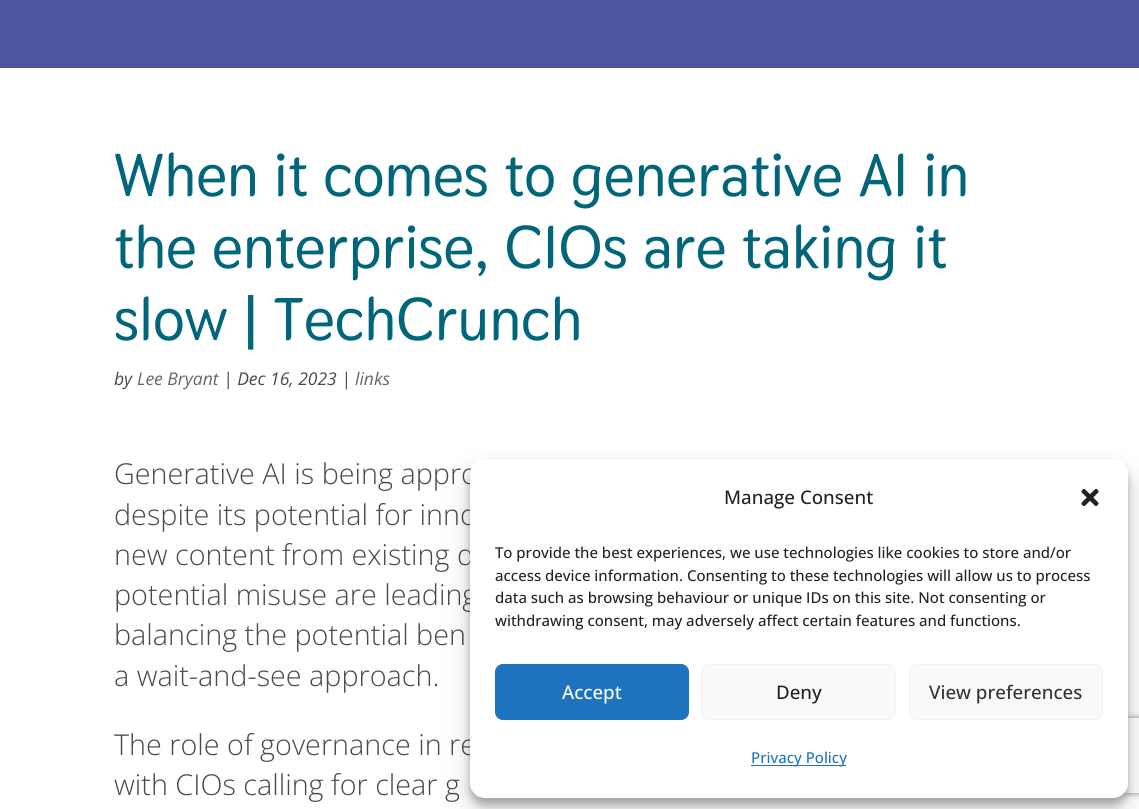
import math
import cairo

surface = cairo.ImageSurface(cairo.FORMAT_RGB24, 1139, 809)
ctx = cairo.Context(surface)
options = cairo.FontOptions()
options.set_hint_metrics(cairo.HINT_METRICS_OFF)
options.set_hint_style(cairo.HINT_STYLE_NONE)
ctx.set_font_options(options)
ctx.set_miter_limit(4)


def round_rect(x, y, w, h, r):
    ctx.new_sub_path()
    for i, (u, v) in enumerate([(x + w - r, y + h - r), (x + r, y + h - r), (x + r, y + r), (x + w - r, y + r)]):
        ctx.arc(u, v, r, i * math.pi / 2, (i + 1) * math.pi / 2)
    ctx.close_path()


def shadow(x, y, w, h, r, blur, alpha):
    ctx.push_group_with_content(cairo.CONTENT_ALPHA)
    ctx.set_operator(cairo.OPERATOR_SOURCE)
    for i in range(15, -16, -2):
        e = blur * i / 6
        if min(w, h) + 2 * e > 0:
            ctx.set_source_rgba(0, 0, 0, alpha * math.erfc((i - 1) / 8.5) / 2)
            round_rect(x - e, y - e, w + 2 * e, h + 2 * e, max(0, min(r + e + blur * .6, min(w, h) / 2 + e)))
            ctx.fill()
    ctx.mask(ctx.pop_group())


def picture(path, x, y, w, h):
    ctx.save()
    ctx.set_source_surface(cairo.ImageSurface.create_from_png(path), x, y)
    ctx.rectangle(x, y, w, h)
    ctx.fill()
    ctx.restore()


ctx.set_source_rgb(1, 1, 1)
ctx.paint()
ctx.set_source_rgb(0.314, 0.329, 0.62)
ctx.rectangle(0, 0, 1139, 68)
ctx.fill()
ctx.select_font_face("Thasadith", cairo.FONT_SLANT_NORMAL, cairo.FONT_WEIGHT_BOLD)
ctx.set_font_size(60)
ctx.set_source_rgb(0.008, 0.4, 0.482)
ctx.move_to(114, 196)
ctx.show_text("When it comes to generative AI in")
ctx.move_to(114, 268)
ctx.show_text("the enterprise, CIOs are taking it")
ctx.move_to(114, 340)
ctx.show_text("slow | TechCrunch")
ctx.select_font_face("Open Sans", cairo.FONT_SLANT_ITALIC)
ctx.set_font_size(17.5)
ctx.set_source_rgb(0.286, 0.286, 0.286)
ctx.move_to(114, 385)
ctx.show_text("by")
ctx.set_source_rgb(0.4, 0.4, 0.4)
ctx.move_to(137, 385)
ctx.show_text("Lee Bryant")
ctx.set_source_rgb(0.286, 0.286, 0.286)
ctx.move_to(223, 385)
ctx.show_text("| Dec 16, 2023 |")
ctx.set_source_rgb(0.4, 0.4, 0.4)
ctx.move_to(355, 385)
ctx.show_text("links")
ctx.select_font_face("Open Sans Light")
ctx.set_font_size(28.75)
ctx.set_source_rgb(0.286, 0.286, 0.286)
ctx.move_to(114, 484)
ctx.show_text("Generative AI is being appro")
ctx.move_to(114, 525)
ctx.show_text("despite its potential for inno")
ctx.move_to(114, 565)
ctx.show_text("new content from existing d")
ctx.move_to(114, 605)
ctx.show_text("potential misuse are leading")
ctx.move_to(114, 645)
ctx.show_text("balancing the potential ben")
ctx.move_to(114, 686)
ctx.show_text("a wait-and-see approach.")
ctx.move_to(114, 755)
ctx.show_text("The role of governance in re")
ctx.move_to(114, 795)
ctx.show_text("with CIOs calling for clear g")
ctx.set_source_rgb(0, 0, 0)
shadow(470, 466, 658, 339, 15, 4, 0.23)
shadow(470, 471, 658, 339, 15, 12.5, 0.19)
ctx.save()
ctx.set_fill_rule(cairo.FILL_RULE_EVEN_ODD)
ctx.new_path()
ctx.move_to(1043, 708)
ctx.line_to(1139, 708)
ctx.line_to(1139, 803)
ctx.line_to(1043, 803)
ctx.close_path()
ctx.move_to(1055.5, 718)
ctx.line_to(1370.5, 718)
ctx.curve_to(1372, 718, 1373, 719, 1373, 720.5)
ctx.line_to(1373, 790.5)
ctx.curve_to(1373, 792, 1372, 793, 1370.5, 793)
ctx.line_to(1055.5, 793)
ctx.curve_to(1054, 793, 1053, 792, 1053, 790.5)
ctx.line_to(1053, 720.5)
ctx.curve_to(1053, 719, 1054, 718, 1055.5, 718)
ctx.close_path()
ctx.clip()
ctx.set_source_rgb(0.502, 0.502, 0.502)
shadow(1053, 718, 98, 75, 2.5, 3, 1)
ctx.restore()
ctx.set_source_rgb(1, 1, 1)
round_rect(470, 459, 658, 339, 15)
ctx.fill()
ctx.select_font_face("Open Sans Medium")
ctx.set_font_size(18.75)
ctx.set_source_rgb(0.133, 0.133, 0.133)
ctx.move_to(724, 504)
ctx.show_text("Manage Consent")
picture("img1.png", 1081, 488, 18, 18)
ctx.set_font_size(15)
ctx.move_to(495, 558)
ctx.show_text("To provide the best experiences, we use technologies like cookies to store and/or")
ctx.move_to(495, 581)
ctx.show_text("access device information. Consenting to these technologies will allow us to process")
ctx.move_to(495, 603)
ctx.show_text("data such as browsing behaviour or unique IDs on this site. Not consenting or")
ctx.move_to(495, 626)
ctx.show_text("withdrawing consent, may adversely affect certain features and functions.")
ctx.set_source_rgb(0.118, 0.451, 0.745)
round_rect(495.5, 664.5, 193, 55, 7.5)
ctx.fill_preserve()
ctx.set_line_width(1)
ctx.stroke()
ctx.set_font_size(18.75)
ctx.set_source_rgb(1, 1, 1)
ctx.move_to(562, 699)
ctx.show_text("Accept")
ctx.set_source_rgb(0.976, 0.976, 0.976)
round_rect(701.5, 664.5, 194, 55, 7.5)
ctx.fill_preserve()
ctx.set_source_rgb(0.949, 0.949, 0.949)
ctx.stroke()
ctx.set_source_rgb(0.133, 0.133, 0.133)
ctx.move_to(776, 699)
ctx.show_text("Deny")
ctx.set_source_rgb(0.976, 0.976, 0.976)
round_rect(909.5, 664.5, 193, 55, 7.5)
ctx.fill_preserve()
ctx.set_source_rgb(0.949, 0.949, 0.949)
ctx.stroke()
ctx.set_source_rgb(0.2, 0.2, 0.2)
ctx.move_to(929, 699)
ctx.show_text("View preferences")
ctx.set_source_rgb(0.118, 0.451, 0.745)
ctx.rectangle(751, 765, 95, 1)
ctx.fill()
ctx.set_font_size(15)
ctx.move_to(751, 763)
ctx.show_text("Privacy Policy")
surface.write_to_png("page.png")
